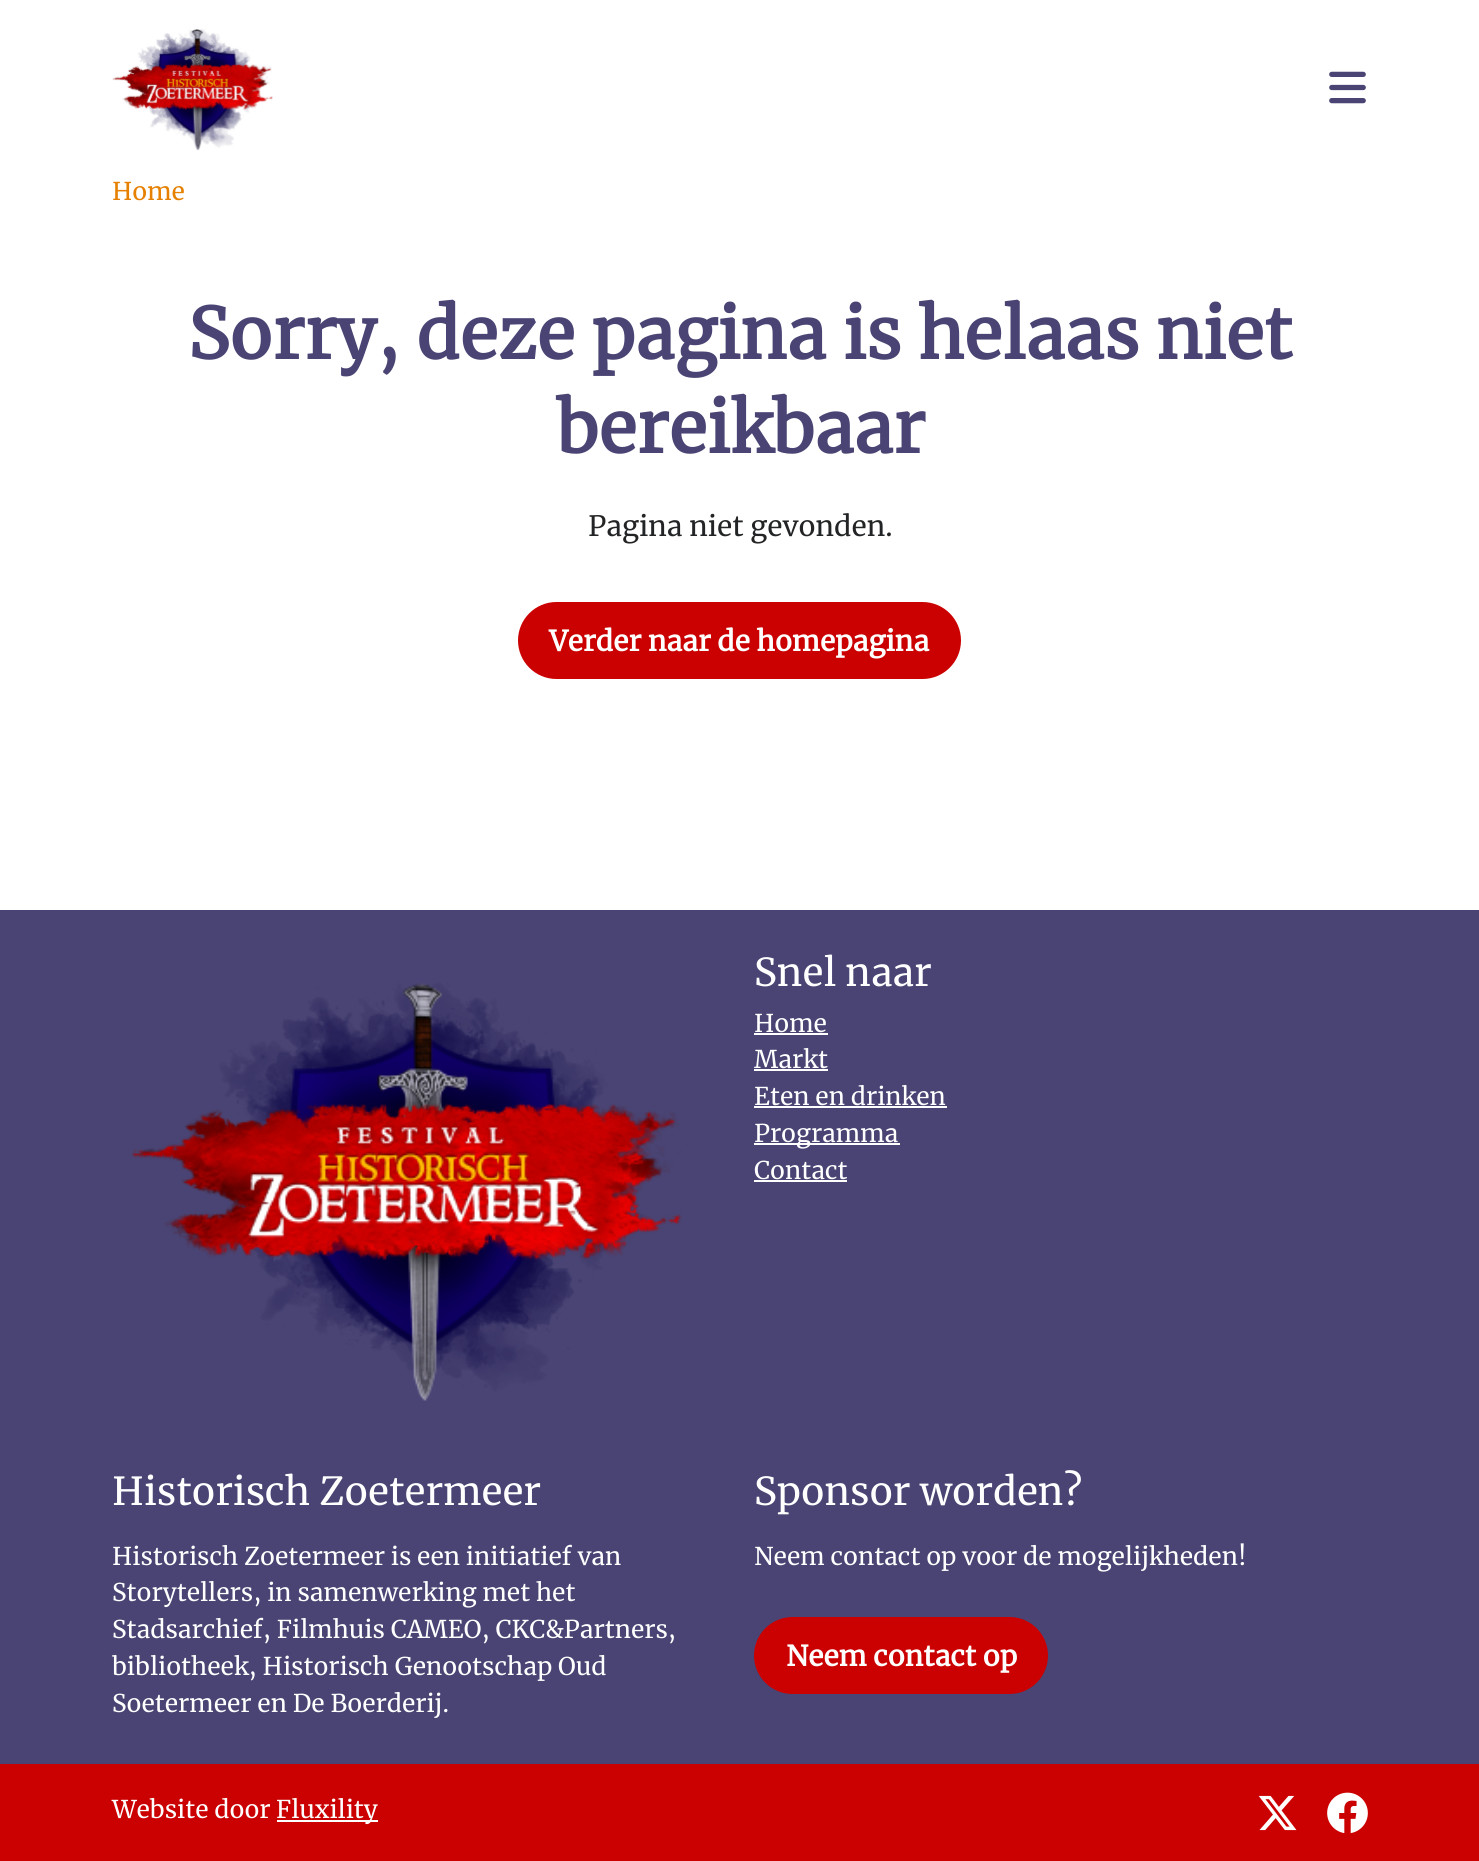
import math
import cairo

surface = cairo.ImageSurface(cairo.FORMAT_RGB24, 1479, 1861)
ctx = cairo.Context(surface)
options = cairo.FontOptions()
options.set_hint_metrics(cairo.HINT_METRICS_OFF)
options.set_hint_style(cairo.HINT_STYLE_NONE)
ctx.set_font_options(options)
ctx.set_miter_limit(4)


def round_rect(x, y, w, h, r):
    ctx.new_sub_path()
    for i, (u, v) in enumerate([(x + w - r, y + h - r), (x + r, y + h - r), (x + r, y + r), (x + w - r, y + r)]):
        ctx.arc(u, v, r, i * math.pi / 2, (i + 1) * math.pi / 2)
    ctx.close_path()


def picture(path, x, y, w, h):
    ctx.save()
    ctx.set_source_surface(cairo.ImageSurface.create_from_png(path), x, y)
    ctx.rectangle(x, y, w, h)
    ctx.fill()
    ctx.restore()


ctx.set_source_rgb(1, 1, 1)
ctx.paint()
picture("img1.png", 112, 29, 161, 122)
picture("img2.png", 1329, 71, 37, 33)
ctx.select_font_face("Merriweather")
ctx.set_font_size(24.5)
ctx.set_source_rgb(0.898, 0.502, 0)
ctx.move_to(112, 200)
ctx.show_text("Home")
ctx.select_font_face("Merriweather", cairo.FONT_SLANT_NORMAL, cairo.FONT_WEIGHT_BOLD)
ctx.set_font_size(70)
ctx.set_source_rgb(0.286, 0.267, 0.451)
ctx.move_to(188, 359)
ctx.show_text("Sorry, deze pagina is helaas niet")
ctx.move_to(556, 453)
ctx.show_text("bereikbaar")
ctx.select_font_face("Merriweather")
ctx.set_font_size(28)
ctx.set_source_rgb(0.133, 0.141, 0.149)
ctx.move_to(588, 536)
ctx.show_text("Pagina niet gevonden.")
ctx.set_source_rgb(0.796, 0, 0)
round_rect(518, 602, 443, 77, 38.5)
ctx.fill()
ctx.select_font_face("Merriweather", cairo.FONT_SLANT_NORMAL, cairo.FONT_WEIGHT_BOLD)
ctx.set_source_rgb(1, 1, 1)
ctx.move_to(549, 651)
ctx.show_text("Verder naar de homepagina")
ctx.set_source_rgb(0.286, 0.267, 0.451)
ctx.rectangle(0, 910, 1479, 854)
ctx.fill()
picture("img3.png", 131, 982, 551, 419)
ctx.select_font_face("Merriweather")
ctx.set_font_size(38.5)
ctx.set_source_rgb(1, 1, 1)
ctx.move_to(754, 986)
ctx.show_text("Snel naar")
ctx.set_font_size(24.5)
ctx.move_to(754, 1032)
ctx.show_text("Home")
ctx.rectangle(754, 1033, 74, 2)
ctx.fill()
ctx.move_to(754, 1068)
ctx.show_text("Markt")
ctx.rectangle(754, 1069, 74, 2)
ctx.fill()
ctx.move_to(754, 1105)
ctx.show_text("Eten en drinken")
ctx.rectangle(754, 1106, 193, 2)
ctx.fill()
ctx.rectangle(754, 1143, 146, 2)
ctx.fill()
ctx.move_to(754, 1142)
ctx.show_text("Programma")
ctx.move_to(754, 1179)
ctx.show_text("Contact")
ctx.rectangle(754, 1180, 93, 2)
ctx.fill()
ctx.set_font_size(38.5)
ctx.move_to(112, 1505)
ctx.show_text("Historisch Zoetermeer")
ctx.set_font_size(24.5)
ctx.move_to(112, 1565)
ctx.show_text("Historisch Zoetermeer is een initiatief van")
ctx.move_to(112, 1601)
ctx.show_text("Storytellers, in samenwerking met het")
ctx.move_to(112, 1638)
ctx.show_text("Stadsarchief, Filmhuis CAMEO, CKC&Partners,")
ctx.move_to(112, 1675)
ctx.show_text("bibliotheek, Historisch Genootschap Oud")
ctx.move_to(112, 1712)
ctx.show_text("Soetermeer en De Boerderij.")
ctx.set_font_size(38.5)
ctx.move_to(754, 1505)
ctx.show_text("Sponsor worden?")
ctx.set_font_size(24.5)
ctx.move_to(754, 1565)
ctx.show_text("Neem contact op voor de mogelijkheden!")
ctx.set_source_rgb(0.796, 0, 0)
round_rect(754, 1617, 294, 77, 38.5)
ctx.fill()
ctx.select_font_face("Merriweather", cairo.FONT_SLANT_NORMAL, cairo.FONT_WEIGHT_BOLD)
ctx.set_font_size(28)
ctx.set_source_rgb(1, 1, 1)
ctx.move_to(786, 1666)
ctx.show_text("Neem contact op")
ctx.set_source_rgb(0.796, 0, 0)
ctx.rectangle(0, 1764, 1479, 97)
ctx.fill()
ctx.select_font_face("Merriweather")
ctx.set_font_size(24.5)
ctx.set_source_rgb(1, 1, 1)
ctx.move_to(112, 1818)
ctx.show_text("Website door")
ctx.rectangle(277, 1820, 101, 2)
ctx.fill()
ctx.move_to(276, 1818)
ctx.show_text("Fluxility")
picture("img4.png", 1258, 1795, 39, 36)
picture("img5.png", 1327, 1792, 41, 41)
surface.write_to_png("page.png")
